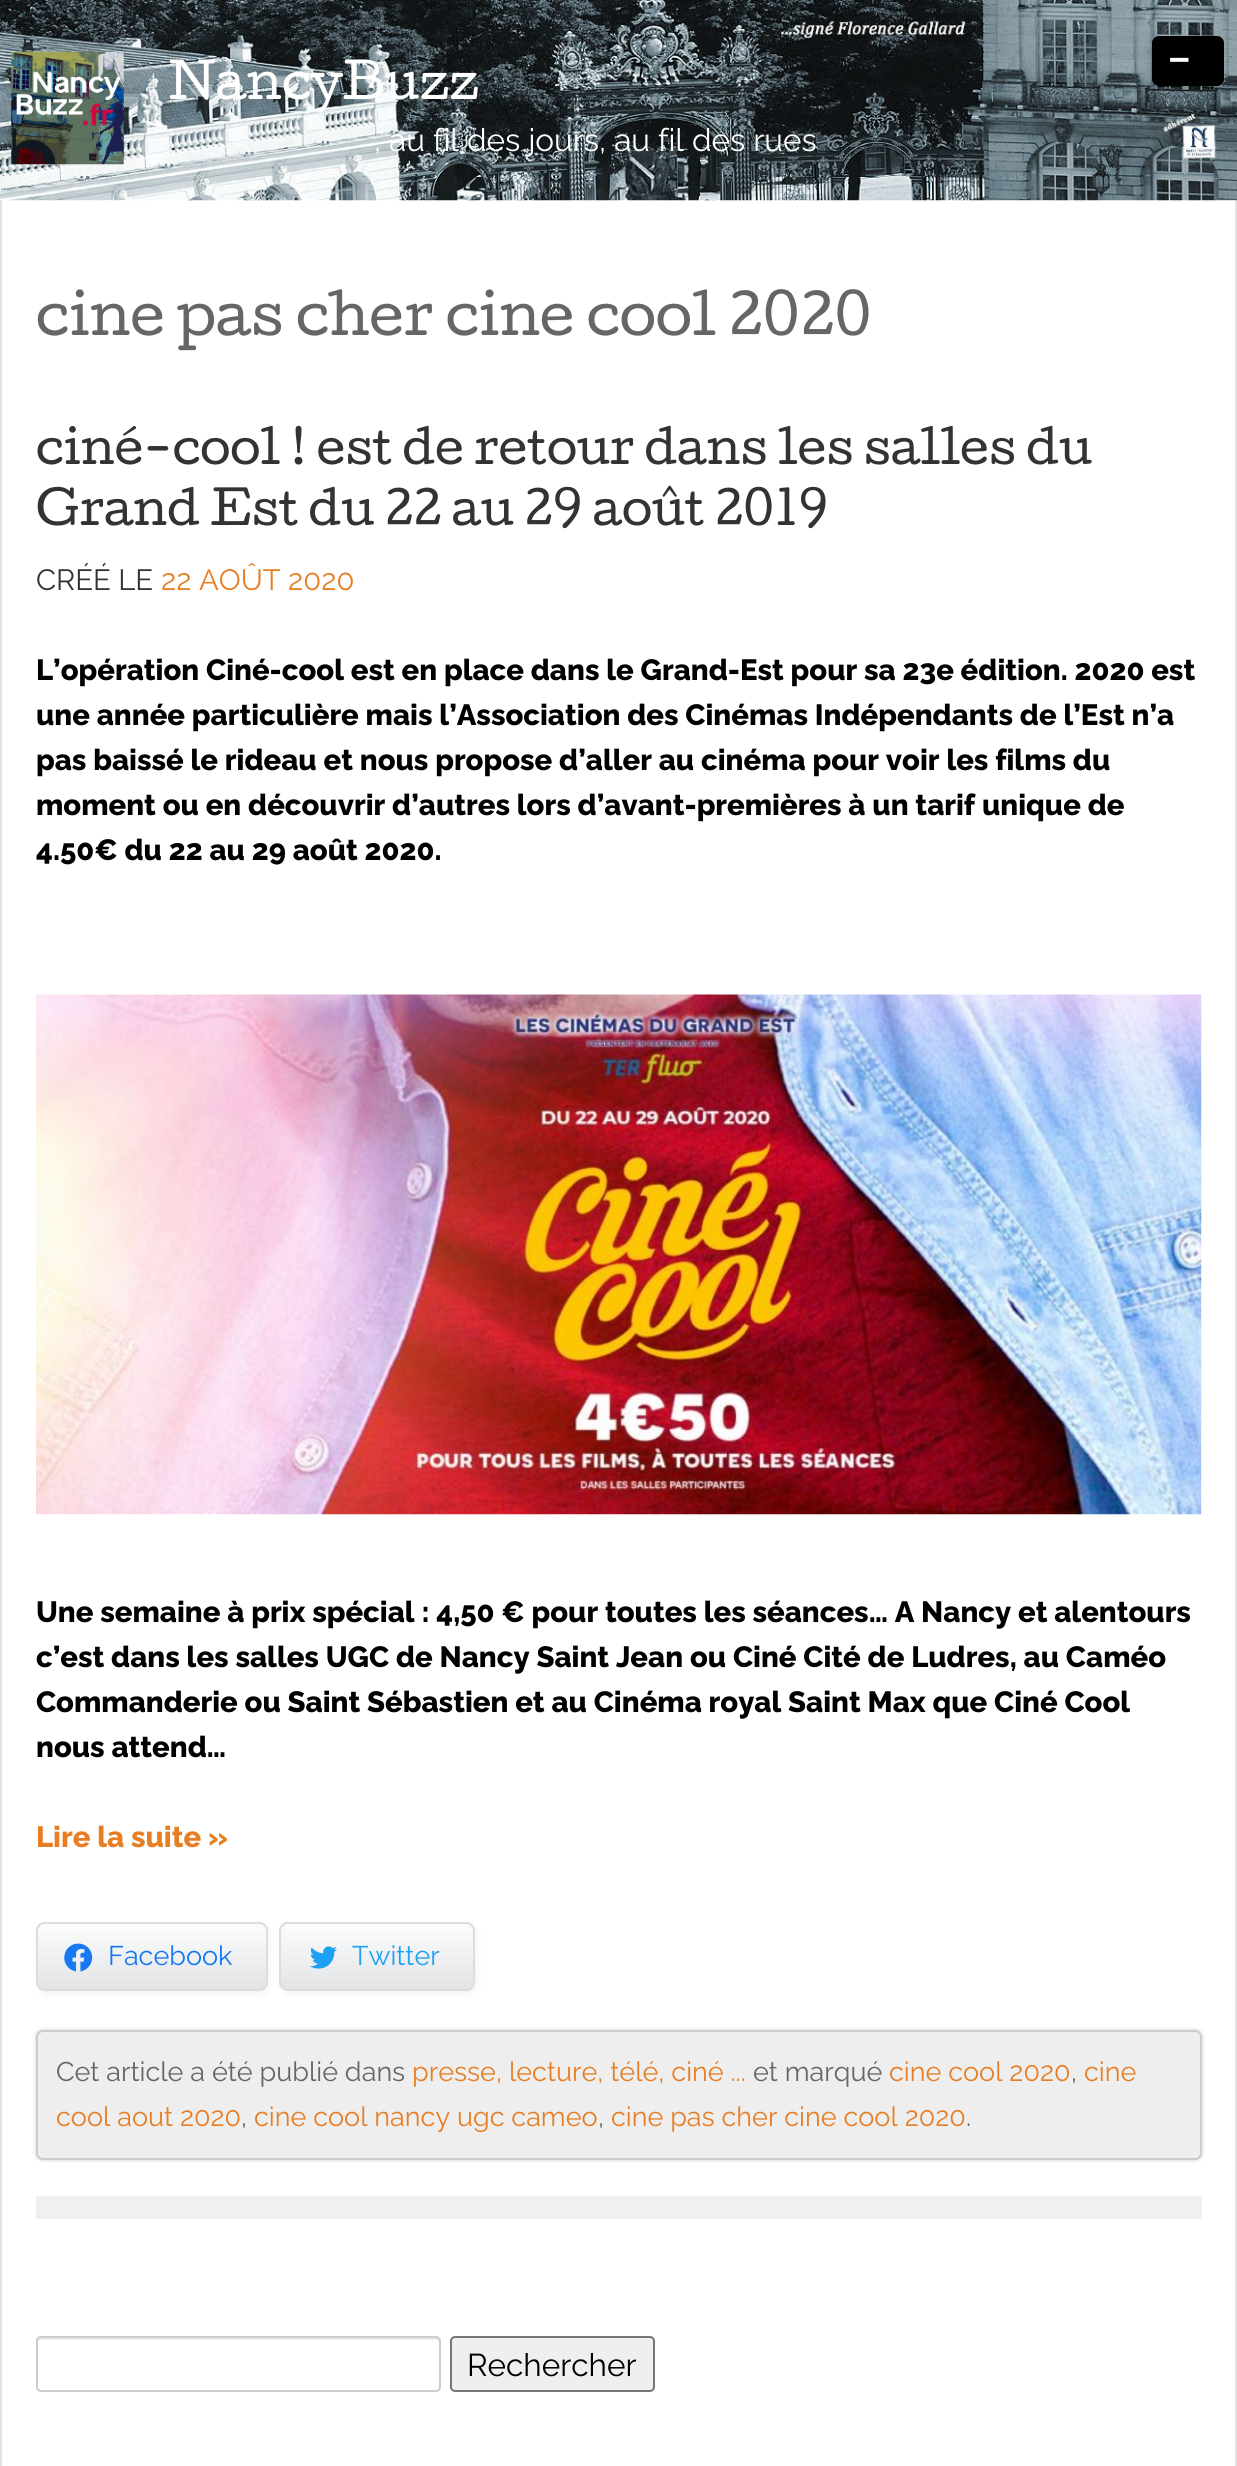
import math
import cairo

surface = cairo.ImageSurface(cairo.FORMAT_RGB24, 1237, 2466)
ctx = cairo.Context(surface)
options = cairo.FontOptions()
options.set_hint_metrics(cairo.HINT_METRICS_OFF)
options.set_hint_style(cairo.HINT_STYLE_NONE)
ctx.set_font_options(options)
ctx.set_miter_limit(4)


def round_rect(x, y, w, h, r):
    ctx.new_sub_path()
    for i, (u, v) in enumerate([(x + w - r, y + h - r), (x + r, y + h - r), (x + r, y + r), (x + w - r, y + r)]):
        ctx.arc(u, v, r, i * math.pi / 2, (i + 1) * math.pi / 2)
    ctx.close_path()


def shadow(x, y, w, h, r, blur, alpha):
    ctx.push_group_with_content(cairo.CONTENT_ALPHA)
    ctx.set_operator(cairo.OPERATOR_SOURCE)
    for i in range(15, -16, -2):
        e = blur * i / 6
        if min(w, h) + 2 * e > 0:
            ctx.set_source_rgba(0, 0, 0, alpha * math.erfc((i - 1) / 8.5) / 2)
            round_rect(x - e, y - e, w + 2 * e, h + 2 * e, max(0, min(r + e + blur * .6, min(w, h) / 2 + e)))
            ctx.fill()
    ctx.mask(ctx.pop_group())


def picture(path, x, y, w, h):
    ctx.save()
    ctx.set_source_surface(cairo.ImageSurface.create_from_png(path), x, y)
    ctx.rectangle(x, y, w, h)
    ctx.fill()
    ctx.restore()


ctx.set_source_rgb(1, 1, 1)
ctx.paint()
ctx.set_source_rgb(0.886, 0.886, 0.886)
ctx.rectangle(1235, 200, 2, 2266)
ctx.fill()
ctx.rectangle(0, 200, 2, 2266)
ctx.fill()
picture("img1.png", 0, 0, 1237, 201)
picture("img2.png", 11, 51, 113, 114)
ctx.select_font_face("Cutive")
ctx.set_font_size(47.25)
ctx.set_source_rgb(1, 1, 1)
ctx.move_to(169, 99)
ctx.show_text("NancyBuzz")
ctx.select_font_face("Raleway")
ctx.set_font_size(31.5)
ctx.move_to(374, 151)
ctx.show_text(", au fil des jours, au fil des rues")
ctx.set_source_rgb(0, 0, 0)
round_rect(1152, 36, 72, 50, 7)
ctx.fill()
ctx.set_font_size(63)
ctx.set_source_rgb(1, 1, 1)
ctx.move_to(1166, 77)
ctx.show_text("-")
ctx.select_font_face("Cutive")
ctx.set_font_size(54)
ctx.set_source_rgb(0.4, 0.4, 0.4)
ctx.move_to(36, 335)
ctx.show_text("cine pas cher cine cool 2020")
ctx.set_source_rgb(0.941, 0.941, 0.941)
ctx.rectangle(36, 2196, 1166, 23)
ctx.fill()
ctx.set_font_size(45)
ctx.set_source_rgb(0.2, 0.2, 0.2)
ctx.move_to(36, 464)
ctx.show_text("ciné-cool ! est de retour dans les salles du")
ctx.move_to(36, 525)
ctx.show_text("Grand Est du 22 au 29 août 2019")
ctx.select_font_face("Raleway")
ctx.set_font_size(29.25)
ctx.move_to(36, 590)
ctx.show_text("CRÉÉ LE")
ctx.set_source_rgb(0.906, 0.494, 0.137)
ctx.move_to(161, 590)
ctx.show_text("22 AOÛT 2020")
ctx.select_font_face("Raleway ExtraBold")
ctx.set_source_rgb(0, 0, 0)
ctx.move_to(36, 680)
ctx.show_text("L’opération Ciné-cool est en place dans le Grand-Est pour sa 23e édition. 2020 est")
ctx.move_to(36, 725)
ctx.show_text("une année particulière mais l’Association des Cinémas Indépendants de l’Est n’a")
ctx.move_to(36, 770)
ctx.show_text("pas baissé le rideau et nous propose d’aller au cinéma pour voir les films du")
ctx.move_to(36, 815)
ctx.show_text("moment ou en découvrir d’autres lors d’avant-premières à un tarif unique de")
ctx.move_to(36, 860)
ctx.show_text("4.50€ du 22 au 29 août 2020.")
picture("img3.png", 36, 994, 1166, 521)
ctx.move_to(36, 1622)
ctx.show_text("Une semaine à prix spécial : 4,50 € pour toutes les séances… A Nancy et alentours")
ctx.move_to(36, 1667)
ctx.show_text("c’est dans les salles UGC de Nancy Saint Jean ou Ciné Cité de Ludres, au Caméo")
ctx.move_to(36, 1712)
ctx.show_text("Commanderie ou Saint Sébastien et au Cinéma royal Saint Max que Ciné Cool")
ctx.move_to(36, 1757)
ctx.show_text("nous attend…")
ctx.set_source_rgb(0.906, 0.494, 0.137)
ctx.move_to(36, 1847)
ctx.show_text("Lire la suite »")
ctx.set_source_rgb(0, 0, 0)
shadow(38, 1924, 232, 70, 9, 3.5, 0.05)
ctx.set_source_rgb(0.886, 0.894, 0.902)
round_rect(36, 1922, 232, 69, 9)
ctx.fill()
ctx.save()
round_rect(36, 1922, 232, 69, 9)
ctx.clip()
gradient = cairo.LinearGradient(152, 1924, 152, 1989)
gradient.add_color_stop_rgba(0, 1, 1, 1, 0.9)
gradient.add_color_stop_rgba(1, 1, 1, 1, 0)
ctx.set_source(gradient)
ctx.rectangle(36, 1924, 232, 63)
ctx.fill()
ctx.restore()
round_rect(37, 1923, 230, 67, 8)
ctx.set_source_rgb(0.867, 0.867, 0.867)
ctx.stroke()
picture("img4.png", 64, 1943, 29, 29)
ctx.select_font_face("Raleway")
ctx.set_font_size(27)
ctx.set_source_rgb(0.09, 0.471, 0.949)
ctx.move_to(108, 1965)
ctx.show_text("Facebook")
ctx.set_source_rgb(0, 0, 0)
shadow(281, 1924, 196, 70, 9, 3.5, 0.05)
ctx.set_source_rgb(0.886, 0.894, 0.902)
round_rect(279, 1922, 196, 69, 9)
ctx.fill()
ctx.save()
round_rect(279, 1922, 196, 69, 9)
ctx.clip()
gradient = cairo.LinearGradient(377, 1924, 377, 1989)
gradient.add_color_stop_rgba(0, 1, 1, 1, 0.9)
gradient.add_color_stop_rgba(1, 1, 1, 1, 0)
ctx.set_source(gradient)
ctx.rectangle(279, 1924, 196, 63)
ctx.fill()
ctx.restore()
round_rect(280, 1923, 194, 67, 8)
ctx.set_source_rgb(0.867, 0.867, 0.867)
ctx.stroke()
picture("img5.png", 310, 1946, 27, 23)
ctx.set_source_rgb(0.114, 0.631, 0.949)
ctx.move_to(352, 1965)
ctx.show_text("Twitter")
ctx.set_source_rgb(0.6, 0.6, 0.6)
shadow(36, 2030, 1166, 130, 7, 2, 0.5)
ctx.set_source_rgb(0.933, 0.933, 0.933)
round_rect(37, 2031, 1164, 128, 6)
ctx.fill_preserve()
ctx.set_source_rgb(0.8, 0.8, 0.8)
ctx.stroke()
ctx.set_source_rgb(0.4, 0.4, 0.4)
ctx.move_to(56, 2081)
ctx.show_text("Cet article a été publié dans")
ctx.set_source_rgb(0.906, 0.494, 0.137)
ctx.move_to(412, 2081)
ctx.show_text("presse, lecture, télé, ciné ...")
ctx.set_source_rgb(0.4, 0.4, 0.4)
ctx.move_to(753, 2081)
ctx.show_text("et marqué")
ctx.set_source_rgb(0.906, 0.494, 0.137)
ctx.move_to(889, 2081)
ctx.show_text("cine cool 2020")
ctx.set_source_rgb(0.4, 0.4, 0.4)
ctx.move_to(1071, 2081)
ctx.show_text(",")
ctx.set_source_rgb(0.906, 0.494, 0.137)
ctx.move_to(1084, 2081)
ctx.show_text("cine")
ctx.move_to(56, 2126)
ctx.show_text("cool aout 2020")
ctx.set_source_rgb(0.4, 0.4, 0.4)
ctx.move_to(241, 2126)
ctx.show_text(",")
ctx.set_source_rgb(0.906, 0.494, 0.137)
ctx.move_to(254, 2126)
ctx.show_text("cine cool nancy ugc cameo")
ctx.set_source_rgb(0.4, 0.4, 0.4)
ctx.move_to(598, 2126)
ctx.show_text(",")
ctx.set_source_rgb(0.906, 0.494, 0.137)
ctx.move_to(611, 2126)
ctx.show_text("cine pas cher cine cool 2020")
ctx.set_source_rgb(0.4, 0.4, 0.4)
ctx.move_to(966, 2126)
ctx.show_text(".")
ctx.set_source_rgb(0.925, 0.925, 0.925)
ctx.new_path()
ctx.move_to(40, 2340)
ctx.line_to(436, 2340)
ctx.curve_to(438, 2340, 439, 2341, 439, 2342)
ctx.line_to(439, 2340)
ctx.curve_to(439, 2339, 438, 2338, 437, 2338)
ctx.line_to(40, 2338)
ctx.curve_to(39, 2338, 38, 2339, 38, 2340)
ctx.line_to(38, 2342)
ctx.curve_to(38, 2341, 39, 2340, 40, 2340)
ctx.close_path()
ctx.fill()
round_rect(37, 2337, 403, 54, 4)
ctx.set_source_rgb(0.8, 0.8, 0.8)
ctx.stroke()
ctx.set_source_rgb(0.937, 0.937, 0.937)
round_rect(451, 2337, 203, 54, 4)
ctx.fill_preserve()
ctx.set_source_rgb(0.463, 0.463, 0.463)
ctx.stroke()
ctx.set_font_size(31.5)
ctx.set_source_rgb(0, 0, 0)
ctx.move_to(467, 2376)
ctx.show_text("Rechercher")
surface.write_to_png("page.png")
